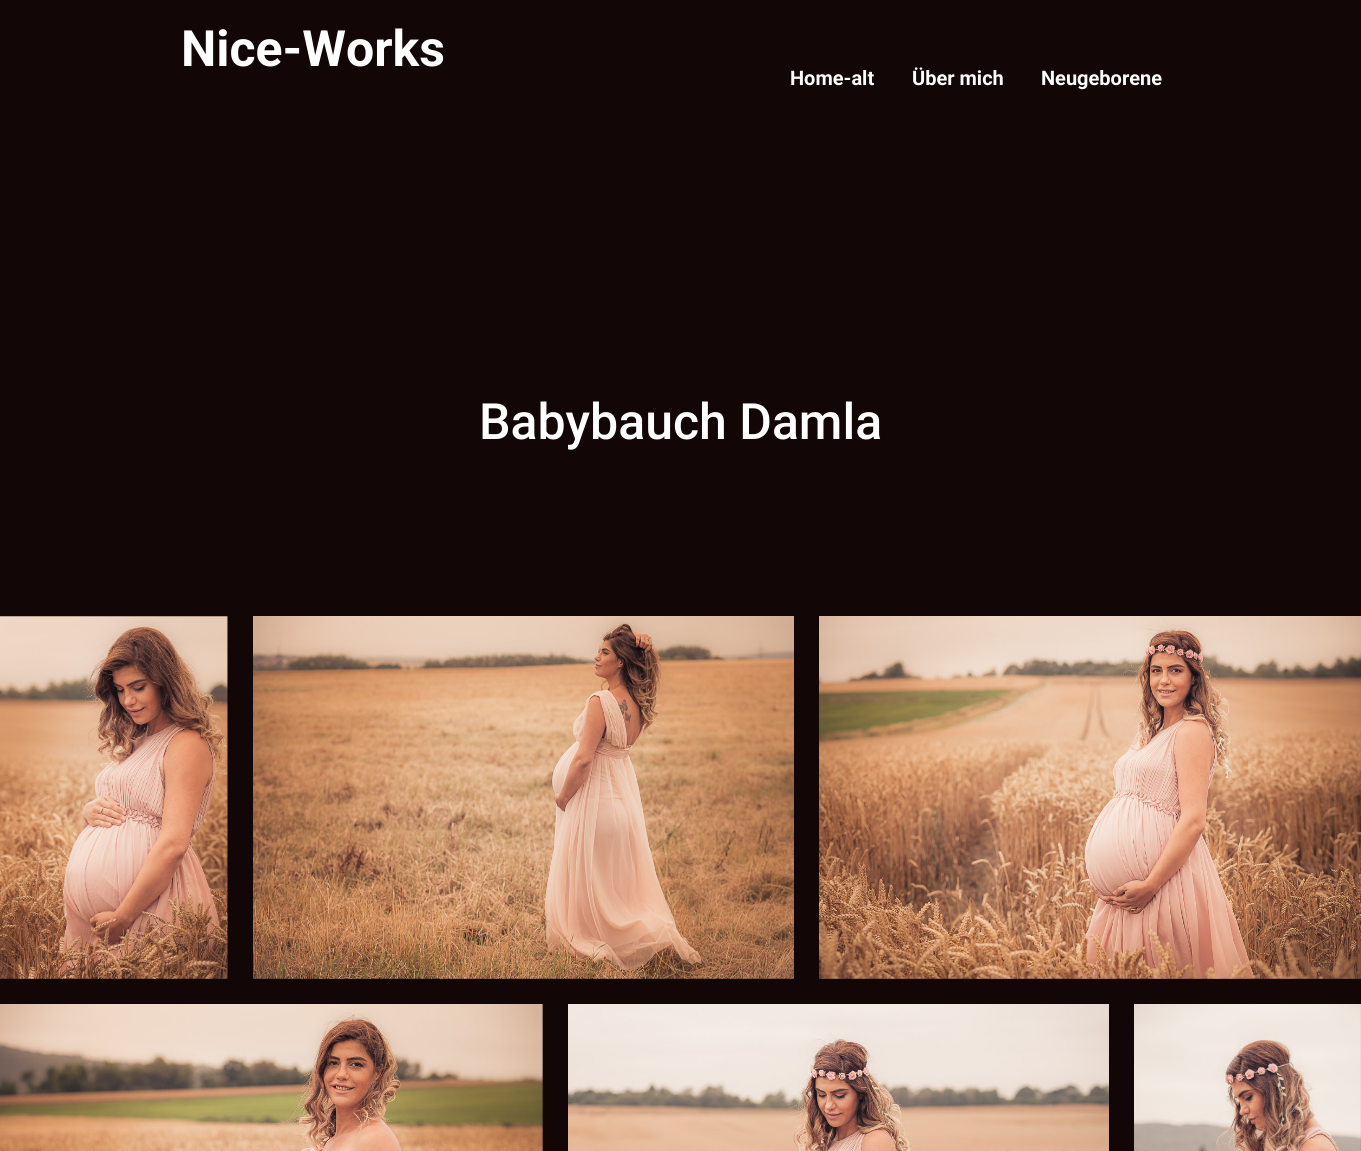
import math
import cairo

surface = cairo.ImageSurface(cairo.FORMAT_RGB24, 1361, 1151)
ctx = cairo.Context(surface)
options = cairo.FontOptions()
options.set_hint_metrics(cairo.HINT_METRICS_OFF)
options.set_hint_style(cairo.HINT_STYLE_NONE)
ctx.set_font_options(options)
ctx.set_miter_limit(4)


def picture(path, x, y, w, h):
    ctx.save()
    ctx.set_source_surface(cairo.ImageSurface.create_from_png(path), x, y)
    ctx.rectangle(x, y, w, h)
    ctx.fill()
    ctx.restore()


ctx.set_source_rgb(0.075, 0.024, 0.024)
ctx.paint()
ctx.select_font_face("Roboto", cairo.FONT_SLANT_NORMAL, cairo.FONT_WEIGHT_BOLD)
ctx.set_font_size(50)
ctx.set_source_rgb(1, 1, 1)
ctx.move_to(181, 66)
ctx.show_text("Nice-Works")
ctx.set_font_size(20)
ctx.move_to(790, 85)
ctx.show_text("Home-alt")
ctx.move_to(912, 85)
ctx.show_text("Über mich")
ctx.move_to(1041, 85)
ctx.show_text("Neugeborene")
ctx.select_font_face("Roboto Medium")
ctx.set_font_size(50)
ctx.move_to(479, 439)
ctx.show_text("Babybauch Damla")
picture("img1.png", 0, 616, 228, 363)
picture("img2.png", 253, 616, 541, 363)
picture("img3.png", 819, 616, 542, 363)
picture("img4.png", 0, 1004, 543, 147)
picture("img5.png", 568, 1004, 541, 147)
picture("img6.png", 1134, 1004, 227, 147)
surface.write_to_png("page.png")
